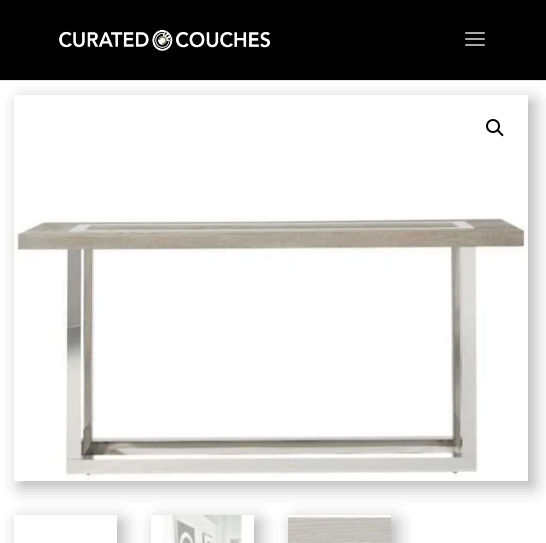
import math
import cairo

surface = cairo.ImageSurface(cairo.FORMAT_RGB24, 546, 543)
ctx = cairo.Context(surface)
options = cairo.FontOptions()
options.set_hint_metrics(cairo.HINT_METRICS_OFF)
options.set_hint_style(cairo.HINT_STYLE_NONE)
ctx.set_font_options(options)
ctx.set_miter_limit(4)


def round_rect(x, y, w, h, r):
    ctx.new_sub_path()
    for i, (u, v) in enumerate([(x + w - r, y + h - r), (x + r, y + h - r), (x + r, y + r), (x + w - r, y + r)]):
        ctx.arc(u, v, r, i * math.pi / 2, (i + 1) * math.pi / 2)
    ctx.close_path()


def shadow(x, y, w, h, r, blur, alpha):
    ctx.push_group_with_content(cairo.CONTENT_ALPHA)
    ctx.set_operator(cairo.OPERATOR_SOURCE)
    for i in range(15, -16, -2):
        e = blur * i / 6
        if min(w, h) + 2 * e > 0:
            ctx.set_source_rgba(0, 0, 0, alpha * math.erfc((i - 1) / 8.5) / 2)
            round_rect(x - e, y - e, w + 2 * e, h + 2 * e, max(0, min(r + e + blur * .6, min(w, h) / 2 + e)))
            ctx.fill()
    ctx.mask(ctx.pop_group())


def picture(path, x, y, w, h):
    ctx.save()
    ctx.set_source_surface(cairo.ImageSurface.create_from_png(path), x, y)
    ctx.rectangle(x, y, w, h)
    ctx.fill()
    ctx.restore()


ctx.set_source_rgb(1, 1, 1)
ctx.paint()
ctx.save()
ctx.set_fill_rule(cairo.FILL_RULE_EVEN_ODD)
ctx.new_path()
ctx.move_to(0, 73)
ctx.line_to(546, 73)
ctx.line_to(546, 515)
ctx.line_to(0, 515)
ctx.close_path()
ctx.move_to(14, 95)
ctx.line_to(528, 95)
ctx.line_to(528, 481)
ctx.line_to(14, 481)
ctx.close_path()
ctx.clip()
ctx.set_source_rgb(0, 0, 0)
shadow(20, 101, 514, 386, 0, 9, 0.3)
ctx.restore()
ctx.set_source_rgb(0.898, 0.898, 0.898)
ctx.rectangle(0, 80, 546, 1)
ctx.fill()
ctx.set_source_rgb(0, 0, 0)
ctx.rectangle(0, 0, 546, 80)
ctx.fill()
picture("img1.png", 59, 29, 212, 22)
picture("img2.png", 465, 32, 20, 14)
picture("img3.png", 14, 216, 514, 264)
ctx.arc(493, 126, 6, 0, 2 * math.pi)
ctx.stroke()
ctx.new_path()
ctx.move_to(497.5, 130)
ctx.curve_to(498.5, 129, 500.5, 131.5, 501, 132.5)
ctx.curve_to(501.5, 133, 504.5, 134.5, 503, 136)
ctx.curve_to(502, 137, 500.5, 134.5, 499.5, 133.5)
ctx.curve_to(499, 133, 496.5, 131.5, 497.5, 130)
ctx.close_path()
ctx.fill()
ctx.save()
ctx.set_fill_rule(cairo.FILL_RULE_EVEN_ODD)
ctx.new_path()
ctx.move_to(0, 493)
ctx.line_to(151, 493)
ctx.line_to(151, 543)
ctx.line_to(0, 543)
ctx.close_path()
ctx.move_to(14, 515)
ctx.line_to(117, 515)
ctx.line_to(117, 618)
ctx.line_to(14, 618)
ctx.close_path()
ctx.clip()
ctx.set_source_rgb(0, 0, 0)
shadow(20, 521, 103, 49, 0, 9, 0.3)
ctx.restore()
ctx.save()
ctx.set_fill_rule(cairo.FILL_RULE_EVEN_ODD)
ctx.new_path()
ctx.move_to(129, 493)
ctx.line_to(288, 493)
ctx.line_to(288, 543)
ctx.line_to(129, 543)
ctx.close_path()
ctx.move_to(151, 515)
ctx.line_to(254, 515)
ctx.line_to(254, 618)
ctx.line_to(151, 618)
ctx.close_path()
ctx.clip()
ctx.set_source_rgb(0, 0, 0)
shadow(157, 521, 103, 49, 0, 9, 0.3)
ctx.restore()
picture("img4.png", 163, 515, 85, 28)
ctx.save()
ctx.set_fill_rule(cairo.FILL_RULE_EVEN_ODD)
ctx.new_path()
ctx.move_to(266, 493)
ctx.line_to(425, 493)
ctx.line_to(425, 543)
ctx.line_to(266, 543)
ctx.close_path()
ctx.move_to(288, 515)
ctx.line_to(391, 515)
ctx.line_to(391, 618)
ctx.line_to(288, 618)
ctx.close_path()
ctx.clip()
ctx.set_source_rgb(0, 0, 0)
shadow(294, 521, 103, 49, 0, 9, 0.3)
ctx.restore()
picture("img5.png", 288, 515, 103, 28)
surface.write_to_png("page.png")
